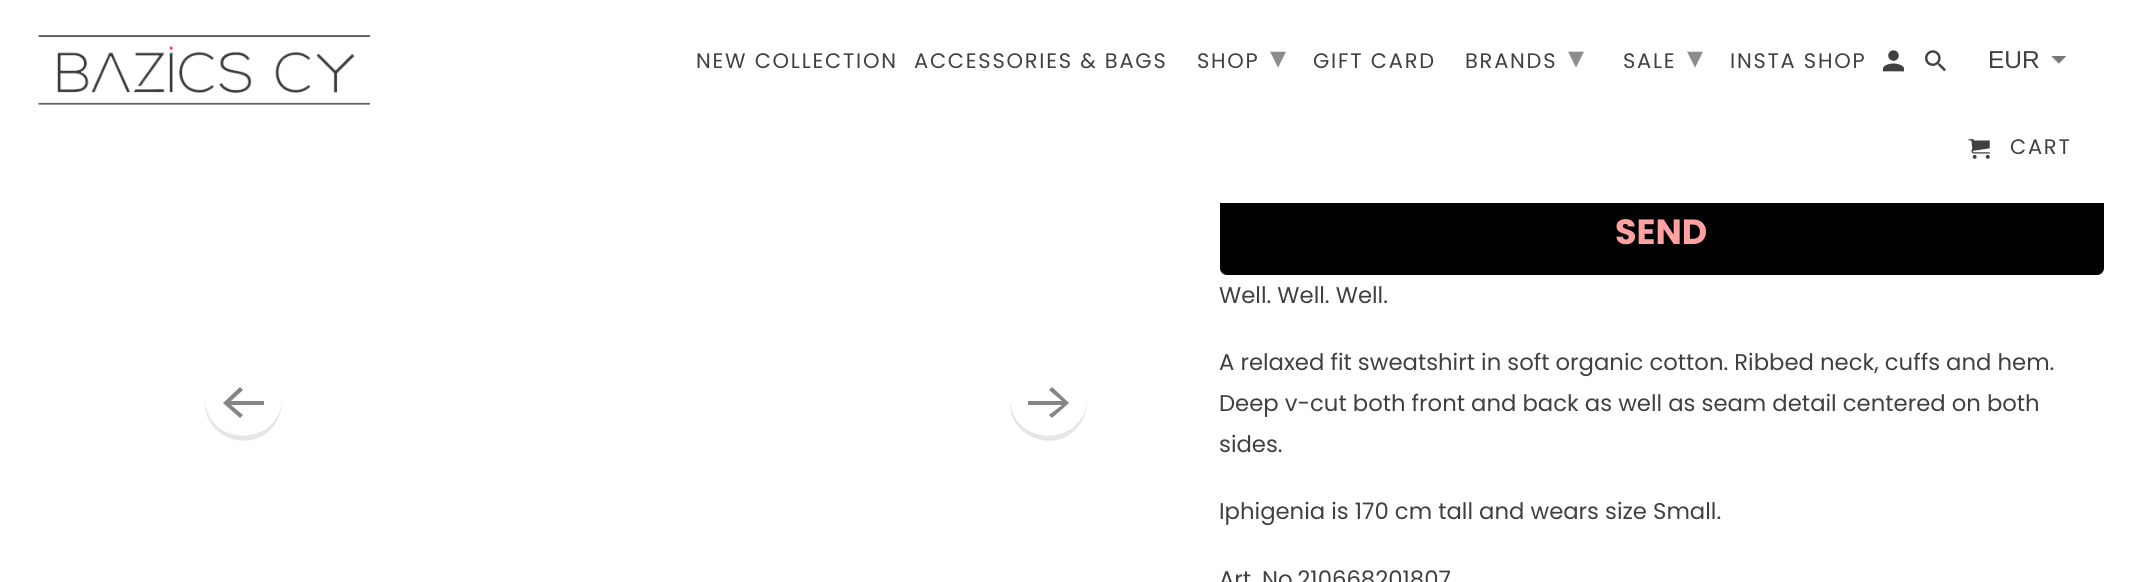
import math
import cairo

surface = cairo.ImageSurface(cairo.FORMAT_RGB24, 2140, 582)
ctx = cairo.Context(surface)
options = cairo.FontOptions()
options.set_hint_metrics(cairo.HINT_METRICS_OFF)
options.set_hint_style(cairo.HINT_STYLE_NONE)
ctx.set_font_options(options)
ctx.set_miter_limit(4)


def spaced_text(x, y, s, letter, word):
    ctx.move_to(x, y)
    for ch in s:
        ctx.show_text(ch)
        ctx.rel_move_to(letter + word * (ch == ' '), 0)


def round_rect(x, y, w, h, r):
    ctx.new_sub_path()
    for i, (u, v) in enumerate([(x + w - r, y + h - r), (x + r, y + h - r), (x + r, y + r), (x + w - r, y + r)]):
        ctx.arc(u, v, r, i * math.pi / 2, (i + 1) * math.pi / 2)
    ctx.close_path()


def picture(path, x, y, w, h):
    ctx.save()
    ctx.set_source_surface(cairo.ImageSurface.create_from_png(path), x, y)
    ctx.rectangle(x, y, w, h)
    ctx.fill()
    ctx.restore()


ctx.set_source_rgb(1, 1, 1)
ctx.paint()
ctx.set_source_rgb(0, 0, 0)
round_rect(1220, 187, 884, 88, 7)
ctx.fill()
ctx.set_source_rgb(1, 1, 1)
ctx.rectangle(1220, 187, 884, 16)
ctx.fill()
picture("img1.png", 38, 35, 333, 70)
ctx.select_font_face("Poppins")
ctx.set_font_size(21)
ctx.set_source_rgb(0.251, 0.251, 0.251)
spaced_text(696, 68, "NEW COLLECTION", 1.75, 0)
spaced_text(914, 68, "ACCESSORIES & BAGS", 1.75, 0)
spaced_text(1197, 68, "SHOP", 1.75, 0)
ctx.select_font_face("DejaVu Sans")
ctx.set_font_size(32)
ctx.set_source_rgb(0.549, 0.549, 0.549)
spaced_text(1270, 68, "▾", 1.75, 0)
ctx.select_font_face("Poppins")
ctx.set_font_size(21)
ctx.set_source_rgb(0.251, 0.251, 0.251)
spaced_text(1313, 68, "GIFT CARD", 1.75, 0)
spaced_text(1465, 68, "BRANDS", 1.75, 0)
ctx.select_font_face("DejaVu Sans")
ctx.set_font_size(32)
ctx.set_source_rgb(0.549, 0.549, 0.549)
spaced_text(1568, 68, "▾", 1.75, 0)
ctx.select_font_face("Poppins")
ctx.set_font_size(21)
ctx.set_source_rgb(0.251, 0.251, 0.251)
spaced_text(1623, 68, "SALE", 1.75, 0)
ctx.select_font_face("DejaVu Sans")
ctx.set_font_size(32)
ctx.set_source_rgb(0.549, 0.549, 0.549)
spaced_text(1687, 68, "▾", 1.75, 0)
ctx.select_font_face("Poppins")
ctx.set_font_size(21)
ctx.set_source_rgb(0.251, 0.251, 0.251)
spaced_text(1730, 68, "INSTA SHOP", 1.75, 0)
picture("img2.png", 1883, 50, 21, 22)
picture("img3.png", 1925, 50, 21, 22)
picture("img4.png", 2051, 56, 16, 8)
ctx.select_font_face("Liberation Sans")
ctx.set_font_size(24.5)
ctx.move_to(1988, 68)
ctx.show_text("EUR")
picture("img5.png", 1968, 139, 22, 20)
ctx.select_font_face("Poppins")
ctx.set_font_size(21)
spaced_text(2010, 154, "CART", 1.75, 0)
ctx.set_source_rgb(0.902, 0.902, 0.902)
ctx.new_path()
ctx.move_to(205, 400)
ctx.curve_to(202, 439, 254, 456, 275, 424)
ctx.curve_to(280, 417, 282, 408, 282, 400)
ctx.curve_to(279, 447, 208, 448, 205, 400)
ctx.close_path()
ctx.fill()
ctx.set_source_rgb(0.522, 0.522, 0.522)
ctx.new_path()
ctx.move_to(264, 401)
ctx.line_to(231, 401)
ctx.line_to(243, 390)
ctx.line_to(240, 387)
ctx.line_to(223, 403)
ctx.line_to(240, 418)
ctx.line_to(243, 415)
ctx.line_to(231, 405)
ctx.line_to(264, 405)
ctx.close_path()
ctx.fill()
ctx.set_source_rgb(0.902, 0.902, 0.902)
ctx.new_path()
ctx.move_to(1010, 400)
ctx.curve_to(1007, 439, 1059, 456, 1080, 424)
ctx.curve_to(1085, 417, 1087, 408, 1087, 400)
ctx.curve_to(1084, 447, 1013, 448, 1010, 400)
ctx.close_path()
ctx.fill()
ctx.set_source_rgb(0.522, 0.522, 0.522)
ctx.new_path()
ctx.move_to(1028, 405)
ctx.line_to(1062, 405)
ctx.line_to(1049, 415)
ctx.line_to(1052, 418)
ctx.line_to(1069, 403)
ctx.line_to(1052, 387)
ctx.line_to(1049, 390)
ctx.line_to(1062, 401)
ctx.line_to(1028, 401)
ctx.close_path()
ctx.fill()
ctx.set_source_rgba(0, 0, 0, 0.1)
ctx.new_path()
ctx.move_to(1220, 262)
ctx.line_to(1220, 268)
ctx.curve_to(1220, 272, 1223, 275, 1227, 275)
ctx.line_to(2097, 275)
ctx.curve_to(2101, 275, 2104, 272, 2104, 268)
ctx.line_to(2104, 262)
ctx.curve_to(2104, 266, 2100, 270, 2096, 270)
ctx.line_to(1227, 270)
ctx.curve_to(1223, 270, 1220, 266, 1220, 262)
ctx.close_path()
ctx.fill()
ctx.select_font_face("Poppins", cairo.FONT_SLANT_NORMAL, cairo.FONT_WEIGHT_BOLD)
ctx.set_font_size(35)
ctx.set_source_rgb(1, 0.631, 0.631)
ctx.move_to(1615, 244)
ctx.show_text("SEND")
ctx.select_font_face("Poppins")
ctx.set_font_size(22.75)
ctx.set_source_rgb(0.251, 0.251, 0.251)
ctx.move_to(1219, 303)
ctx.show_text("Well. Well. Well.")
ctx.move_to(1219, 370)
ctx.show_text("A relaxed fit sweatshirt in soft organic cotton. Ribbed neck, cuffs and hem.")
ctx.move_to(1219, 411)
ctx.show_text("Deep v-cut both front and back as well as seam detail centered on both")
ctx.move_to(1219, 452)
ctx.show_text("sides.")
ctx.move_to(1219, 519)
ctx.show_text("Iphigenia is 170 cm tall and wears size Small.")
ctx.move_to(1219, 587)
ctx.show_text("Art. No.210668201807")
surface.write_to_png("page.png")
